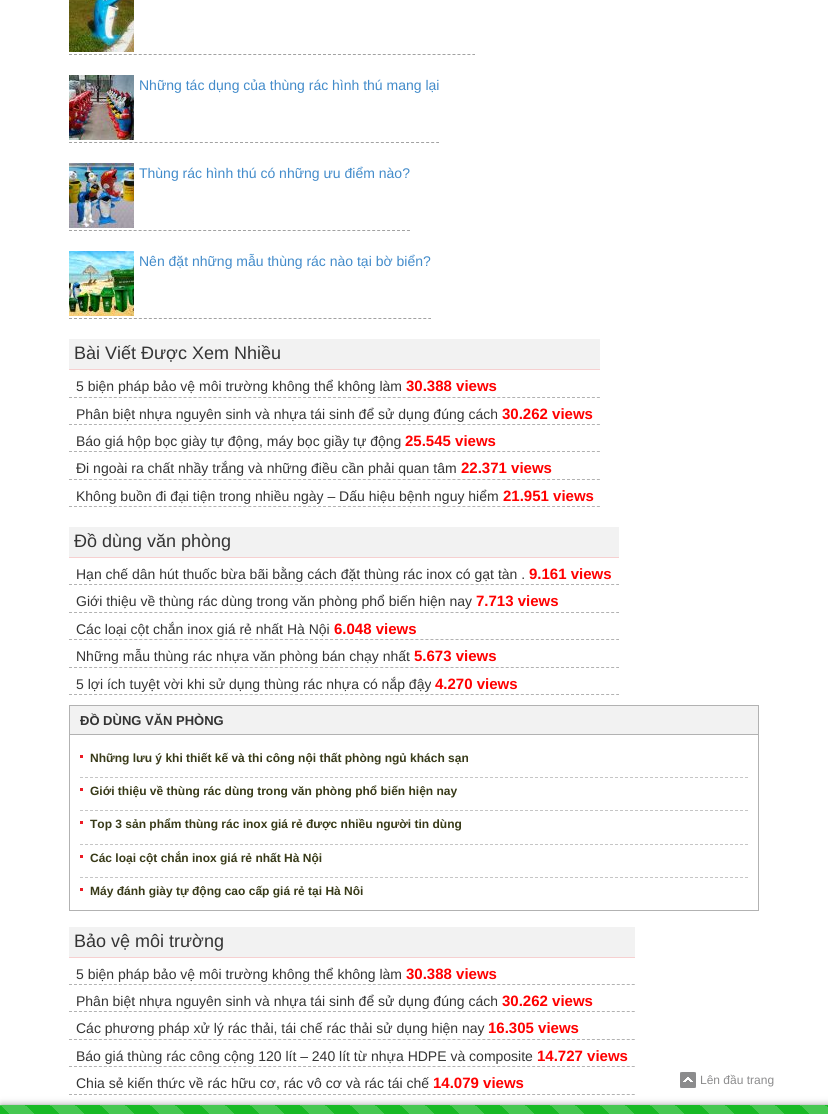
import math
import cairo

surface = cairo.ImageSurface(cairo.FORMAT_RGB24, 828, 1114)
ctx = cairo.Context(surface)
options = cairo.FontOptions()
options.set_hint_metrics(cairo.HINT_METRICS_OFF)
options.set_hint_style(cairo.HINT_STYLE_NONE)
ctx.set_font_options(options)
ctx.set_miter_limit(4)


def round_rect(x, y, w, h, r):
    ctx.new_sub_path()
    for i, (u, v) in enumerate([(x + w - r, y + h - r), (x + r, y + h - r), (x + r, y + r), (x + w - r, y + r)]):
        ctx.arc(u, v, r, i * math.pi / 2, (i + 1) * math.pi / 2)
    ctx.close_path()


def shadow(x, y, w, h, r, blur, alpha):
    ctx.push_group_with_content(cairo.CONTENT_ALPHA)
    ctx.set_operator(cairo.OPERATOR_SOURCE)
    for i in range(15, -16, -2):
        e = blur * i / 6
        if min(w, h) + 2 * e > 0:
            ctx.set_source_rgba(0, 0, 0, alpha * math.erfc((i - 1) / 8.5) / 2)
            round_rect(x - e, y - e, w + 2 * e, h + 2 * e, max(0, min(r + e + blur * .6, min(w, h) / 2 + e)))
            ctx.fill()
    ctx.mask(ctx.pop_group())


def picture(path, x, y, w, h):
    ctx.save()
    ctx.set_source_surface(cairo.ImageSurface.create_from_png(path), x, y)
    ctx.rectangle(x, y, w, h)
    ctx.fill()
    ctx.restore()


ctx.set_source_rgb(1, 1, 1)
ctx.paint()
ctx.new_path()
ctx.move_to(69, 54.5)
ctx.line_to(475, 54.5)
ctx.set_source_rgb(0.635, 0.635, 0.635)
ctx.set_line_width(1)
ctx.set_dash([3, 1.98])
ctx.stroke()
picture("img1.png", 69, 0, 65, 52)
ctx.new_path()
ctx.move_to(69, 142.5)
ctx.line_to(439, 142.5)
ctx.set_dash([3, 2.03])
ctx.stroke()
picture("img2.png", 69, 75, 65, 65)
ctx.select_font_face("Liberation Sans")
ctx.set_font_size(14)
ctx.set_source_rgb(0.259, 0.545, 0.792)
ctx.move_to(139, 90)
ctx.show_text("Những tác dụng của thùng rác hình thú mang lại")
ctx.new_path()
ctx.move_to(69, 230.5)
ctx.line_to(410, 230.5)
ctx.set_source_rgb(0.635, 0.635, 0.635)
ctx.set_dash([3, 1.97])
ctx.stroke()
picture("img3.png", 69, 163, 65, 65)
ctx.set_source_rgb(0.259, 0.545, 0.792)
ctx.move_to(139, 178)
ctx.show_text("Thùng rác hình thú có những ưu điểm nào?")
ctx.new_path()
ctx.move_to(69, 318.5)
ctx.line_to(431, 318.5)
ctx.set_source_rgb(0.635, 0.635, 0.635)
ctx.set_dash([3, 1.99])
ctx.stroke()
picture("img4.png", 69, 251, 65, 65)
ctx.set_source_rgb(0.259, 0.545, 0.792)
ctx.move_to(139, 266)
ctx.show_text("Nên đặt những mẫu thùng rác nào tại bờ biển?")
ctx.set_source_rgb(0.949, 0.949, 0.949)
ctx.rectangle(69, 339, 531, 30)
ctx.fill()
ctx.set_source_rgb(0.961, 0.816, 0.816)
ctx.rectangle(69, 369, 531, 1)
ctx.fill()
ctx.set_font_size(18)
ctx.set_source_rgb(0.204, 0.204, 0.204)
ctx.move_to(74, 359)
ctx.show_text("Bài Viết Được Xem Nhiều")
ctx.new_path()
ctx.move_to(69, 397.5)
ctx.line_to(600, 397.5)
ctx.set_source_rgb(0.698, 0.698, 0.698)
ctx.set_dash([3, 1.98])
ctx.stroke()
ctx.set_font_size(14)
ctx.set_source_rgb(0.204, 0.204, 0.204)
ctx.move_to(76, 391)
ctx.show_text("5 biện pháp bảo vệ môi trường không thể không làm")
ctx.select_font_face("Liberation Sans", cairo.FONT_SLANT_NORMAL, cairo.FONT_WEIGHT_BOLD)
ctx.set_font_size(15)
ctx.set_source_rgb(1, 0, 0)
ctx.move_to(406, 391)
ctx.show_text("30.388 views")
ctx.new_path()
ctx.move_to(69, 424.5)
ctx.line_to(600, 424.5)
ctx.set_source_rgb(0.698, 0.698, 0.698)
ctx.stroke()
ctx.select_font_face("Liberation Sans")
ctx.set_font_size(14)
ctx.set_source_rgb(0.204, 0.204, 0.204)
ctx.move_to(76, 419)
ctx.show_text("Phân biệt nhựa nguyên sinh và nhựa tái sinh để sử dụng đúng cách")
ctx.select_font_face("Liberation Sans", cairo.FONT_SLANT_NORMAL, cairo.FONT_WEIGHT_BOLD)
ctx.set_font_size(15)
ctx.set_source_rgb(1, 0, 0)
ctx.move_to(502, 419)
ctx.show_text("30.262 views")
ctx.new_path()
ctx.move_to(69, 451.5)
ctx.line_to(600, 451.5)
ctx.set_source_rgb(0.698, 0.698, 0.698)
ctx.stroke()
ctx.select_font_face("Liberation Sans")
ctx.set_font_size(14)
ctx.set_source_rgb(0.204, 0.204, 0.204)
ctx.move_to(76, 446)
ctx.show_text("Báo giá hộp bọc giày tự động, máy bọc giầy tự động")
ctx.select_font_face("Liberation Sans", cairo.FONT_SLANT_NORMAL, cairo.FONT_WEIGHT_BOLD)
ctx.set_font_size(15)
ctx.set_source_rgb(1, 0, 0)
ctx.move_to(405, 446)
ctx.show_text("25.545 views")
ctx.new_path()
ctx.move_to(69, 479.5)
ctx.line_to(600, 479.5)
ctx.set_source_rgb(0.698, 0.698, 0.698)
ctx.stroke()
ctx.select_font_face("Liberation Sans")
ctx.set_font_size(14)
ctx.set_source_rgb(0.204, 0.204, 0.204)
ctx.move_to(76, 473)
ctx.show_text("Đi ngoài ra chất nhầy trắng và những điều cần phải quan tâm")
ctx.select_font_face("Liberation Sans", cairo.FONT_SLANT_NORMAL, cairo.FONT_WEIGHT_BOLD)
ctx.set_font_size(15)
ctx.set_source_rgb(1, 0, 0)
ctx.move_to(461, 473)
ctx.show_text("22.371 views")
ctx.new_path()
ctx.move_to(69, 506.5)
ctx.line_to(600, 506.5)
ctx.set_source_rgb(0.698, 0.698, 0.698)
ctx.stroke()
ctx.select_font_face("Liberation Sans")
ctx.set_font_size(14)
ctx.set_source_rgb(0.204, 0.204, 0.204)
ctx.move_to(76, 501)
ctx.show_text("Không buồn đi đại tiện trong nhiều ngày – Dấu hiệu bệnh nguy hiểm")
ctx.select_font_face("Liberation Sans", cairo.FONT_SLANT_NORMAL, cairo.FONT_WEIGHT_BOLD)
ctx.set_font_size(15)
ctx.set_source_rgb(1, 0, 0)
ctx.move_to(503, 501)
ctx.show_text("21.951 views")
ctx.set_source_rgb(0.949, 0.949, 0.949)
ctx.rectangle(69, 527, 550, 30)
ctx.fill()
ctx.set_source_rgb(0.961, 0.816, 0.816)
ctx.rectangle(69, 557, 550, 1)
ctx.fill()
ctx.select_font_face("Liberation Sans")
ctx.set_font_size(18)
ctx.set_source_rgb(0.204, 0.204, 0.204)
ctx.move_to(74, 547)
ctx.show_text("Đồ dùng văn phòng")
ctx.new_path()
ctx.move_to(69, 584.5)
ctx.line_to(619, 584.5)
ctx.set_source_rgb(0.698, 0.698, 0.698)
ctx.set_dash([3, 2.02])
ctx.stroke()
ctx.set_font_size(14)
ctx.set_source_rgb(0.204, 0.204, 0.204)
ctx.move_to(76, 579)
ctx.show_text("Hạn chế dân hút thuốc bừa bãi bằng cách đặt thùng rác inox có gạt tàn .")
ctx.select_font_face("Liberation Sans", cairo.FONT_SLANT_NORMAL, cairo.FONT_WEIGHT_BOLD)
ctx.set_font_size(15)
ctx.set_source_rgb(1, 0, 0)
ctx.move_to(529, 579)
ctx.show_text("9.161 views")
ctx.new_path()
ctx.move_to(69, 612.5)
ctx.line_to(619, 612.5)
ctx.set_source_rgb(0.698, 0.698, 0.698)
ctx.stroke()
ctx.select_font_face("Liberation Sans")
ctx.set_font_size(14)
ctx.set_source_rgb(0.204, 0.204, 0.204)
ctx.move_to(76, 606)
ctx.show_text("Giới thiệu về thùng rác dùng trong văn phòng phổ biến hiện nay")
ctx.select_font_face("Liberation Sans", cairo.FONT_SLANT_NORMAL, cairo.FONT_WEIGHT_BOLD)
ctx.set_font_size(15)
ctx.set_source_rgb(1, 0, 0)
ctx.move_to(476, 606)
ctx.show_text("7.713 views")
ctx.new_path()
ctx.move_to(69, 639.5)
ctx.line_to(619, 639.5)
ctx.set_source_rgb(0.698, 0.698, 0.698)
ctx.stroke()
ctx.select_font_face("Liberation Sans")
ctx.set_font_size(14)
ctx.set_source_rgb(0.204, 0.204, 0.204)
ctx.move_to(76, 634)
ctx.show_text("Các loại cột chắn inox giá rẻ nhất Hà Nội")
ctx.select_font_face("Liberation Sans", cairo.FONT_SLANT_NORMAL, cairo.FONT_WEIGHT_BOLD)
ctx.set_font_size(15)
ctx.set_source_rgb(1, 0, 0)
ctx.move_to(334, 634)
ctx.show_text("6.048 views")
ctx.new_path()
ctx.move_to(69, 667.5)
ctx.line_to(619, 667.5)
ctx.set_source_rgb(0.698, 0.698, 0.698)
ctx.stroke()
ctx.select_font_face("Liberation Sans")
ctx.set_font_size(14)
ctx.set_source_rgb(0.204, 0.204, 0.204)
ctx.move_to(76, 661)
ctx.show_text("Những mẫu thùng rác nhựa văn phòng bán chạy nhất")
ctx.select_font_face("Liberation Sans", cairo.FONT_SLANT_NORMAL, cairo.FONT_WEIGHT_BOLD)
ctx.set_font_size(15)
ctx.set_source_rgb(1, 0, 0)
ctx.move_to(414, 661)
ctx.show_text("5.673 views")
ctx.new_path()
ctx.move_to(69, 694.5)
ctx.line_to(619, 694.5)
ctx.set_source_rgb(0.698, 0.698, 0.698)
ctx.stroke()
ctx.select_font_face("Liberation Sans")
ctx.set_font_size(14)
ctx.set_source_rgb(0.204, 0.204, 0.204)
ctx.move_to(76, 689)
ctx.show_text("5 lợi ích tuyệt vời khi sử dụng thùng rác nhựa có nắp đậy")
ctx.select_font_face("Liberation Sans", cairo.FONT_SLANT_NORMAL, cairo.FONT_WEIGHT_BOLD)
ctx.set_font_size(15)
ctx.set_source_rgb(1, 0, 0)
ctx.move_to(435, 689)
ctx.show_text("4.270 views")
ctx.set_source_rgb(0.949, 0.949, 0.949)
ctx.rectangle(70, 706, 688, 28)
ctx.fill()
ctx.rectangle(69.5, 705.5, 689, 34)
ctx.set_source_rgb(0.698, 0.698, 0.698)
ctx.set_dash([])
ctx.stroke()
ctx.set_font_size(13)
ctx.set_source_rgb(0.204, 0.204, 0.204)
ctx.move_to(80, 725)
ctx.show_text("ĐỒ DÙNG VĂN PHÒNG")
ctx.set_source_rgb(1, 1, 1)
ctx.rectangle(70, 739, 688, 1)
ctx.fill()
ctx.rectangle(69.5, 734.5, 689, 176)
ctx.set_source_rgb(0.698, 0.698, 0.698)
ctx.stroke()
ctx.set_source_rgb(0.929, 0.106, 0.141)
ctx.rectangle(80, 755, 3, 3)
ctx.fill()
ctx.new_path()
ctx.move_to(80, 777.5)
ctx.line_to(748, 777.5)
ctx.set_source_rgb(0.776, 0.776, 0.776)
ctx.set_dash([3, 2])
ctx.stroke()
ctx.set_font_size(12)
ctx.set_source_rgb(0.22, 0.227, 0.094)
ctx.move_to(90, 762)
ctx.show_text("Những lưu ý khi thiết kế và thi công nội thất phòng ngủ khách sạn")
ctx.set_source_rgb(0.929, 0.106, 0.141)
ctx.rectangle(80, 788, 3, 3)
ctx.fill()
ctx.new_path()
ctx.move_to(80, 810.5)
ctx.line_to(748, 810.5)
ctx.set_source_rgb(0.776, 0.776, 0.776)
ctx.stroke()
ctx.set_source_rgb(0.22, 0.227, 0.094)
ctx.move_to(90, 795)
ctx.show_text("Giới thiệu về thùng rác dùng trong văn phòng phổ biến hiện nay")
ctx.set_source_rgb(0.929, 0.106, 0.141)
ctx.rectangle(80, 821, 3, 3)
ctx.fill()
ctx.new_path()
ctx.move_to(80, 844.5)
ctx.line_to(748, 844.5)
ctx.set_source_rgb(0.776, 0.776, 0.776)
ctx.stroke()
ctx.set_source_rgb(0.22, 0.227, 0.094)
ctx.move_to(90, 828)
ctx.show_text("Top 3 sản phẩm thùng rác inox giá rẻ được nhiều người tin dùng")
ctx.set_source_rgb(0.929, 0.106, 0.141)
ctx.rectangle(80, 855, 3, 3)
ctx.fill()
ctx.new_path()
ctx.move_to(80, 877.5)
ctx.line_to(748, 877.5)
ctx.set_source_rgb(0.776, 0.776, 0.776)
ctx.stroke()
ctx.set_source_rgb(0.22, 0.227, 0.094)
ctx.move_to(90, 862)
ctx.show_text("Các loại cột chắn inox giá rẻ nhất Hà Nội")
ctx.set_source_rgb(0.929, 0.106, 0.141)
ctx.rectangle(80, 888, 3, 3)
ctx.fill()
ctx.set_source_rgb(0.22, 0.227, 0.094)
ctx.move_to(90, 895)
ctx.show_text("Máy đánh giày tự động cao cấp giá rẻ tại Hà Nôi")
ctx.set_source_rgb(0.949, 0.949, 0.949)
ctx.rectangle(69, 927, 566, 30)
ctx.fill()
ctx.set_source_rgb(0.961, 0.816, 0.816)
ctx.rectangle(69, 957, 566, 1)
ctx.fill()
ctx.select_font_face("Liberation Sans")
ctx.set_font_size(18)
ctx.set_source_rgb(0.204, 0.204, 0.204)
ctx.move_to(74, 947)
ctx.show_text("Bảo vệ môi trường")
ctx.new_path()
ctx.move_to(69, 984.5)
ctx.line_to(635, 984.5)
ctx.set_source_rgb(0.698, 0.698, 0.698)
ctx.set_dash([3, 1.98])
ctx.stroke()
ctx.set_font_size(14)
ctx.set_source_rgb(0.204, 0.204, 0.204)
ctx.move_to(76, 979)
ctx.show_text("5 biện pháp bảo vệ môi trường không thể không làm")
ctx.select_font_face("Liberation Sans", cairo.FONT_SLANT_NORMAL, cairo.FONT_WEIGHT_BOLD)
ctx.set_font_size(15)
ctx.set_source_rgb(1, 0, 0)
ctx.move_to(406, 979)
ctx.show_text("30.388 views")
ctx.new_path()
ctx.move_to(69, 1011.5)
ctx.line_to(635, 1011.5)
ctx.set_source_rgb(0.698, 0.698, 0.698)
ctx.stroke()
ctx.select_font_face("Liberation Sans")
ctx.set_font_size(14)
ctx.set_source_rgb(0.204, 0.204, 0.204)
ctx.move_to(76, 1006)
ctx.show_text("Phân biệt nhựa nguyên sinh và nhựa tái sinh để sử dụng đúng cách")
ctx.select_font_face("Liberation Sans", cairo.FONT_SLANT_NORMAL, cairo.FONT_WEIGHT_BOLD)
ctx.set_font_size(15)
ctx.set_source_rgb(1, 0, 0)
ctx.move_to(502, 1006)
ctx.show_text("30.262 views")
ctx.new_path()
ctx.move_to(69, 1039.5)
ctx.line_to(635, 1039.5)
ctx.set_source_rgb(0.698, 0.698, 0.698)
ctx.stroke()
ctx.select_font_face("Liberation Sans")
ctx.set_font_size(14)
ctx.set_source_rgb(0.204, 0.204, 0.204)
ctx.move_to(76, 1033)
ctx.show_text("Các phương pháp xử lý rác thải, tái chế rác thải sử dụng hiện nay")
ctx.select_font_face("Liberation Sans", cairo.FONT_SLANT_NORMAL, cairo.FONT_WEIGHT_BOLD)
ctx.set_font_size(15)
ctx.set_source_rgb(1, 0, 0)
ctx.move_to(488, 1033)
ctx.show_text("16.305 views")
ctx.new_path()
ctx.move_to(69, 1066.5)
ctx.line_to(635, 1066.5)
ctx.set_source_rgb(0.698, 0.698, 0.698)
ctx.stroke()
ctx.select_font_face("Liberation Sans")
ctx.set_font_size(14)
ctx.set_source_rgb(0.204, 0.204, 0.204)
ctx.move_to(76, 1061)
ctx.show_text("Báo giá thùng rác công cộng 120 lít – 240 lít từ nhựa HDPE và composite")
ctx.select_font_face("Liberation Sans", cairo.FONT_SLANT_NORMAL, cairo.FONT_WEIGHT_BOLD)
ctx.set_font_size(15)
ctx.set_source_rgb(1, 0, 0)
ctx.move_to(537, 1061)
ctx.show_text("14.727 views")
ctx.set_source_rgb(0.502, 0.502, 0.502)
shadow(1, 1106, 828, 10, 0, 4, 1)
ctx.new_path()
ctx.move_to(69, 1094.5)
ctx.line_to(635, 1094.5)
ctx.set_source_rgb(0.698, 0.698, 0.698)
ctx.stroke()
ctx.select_font_face("Liberation Sans")
ctx.set_font_size(14)
ctx.set_source_rgb(0.204, 0.204, 0.204)
ctx.move_to(76, 1088)
ctx.show_text("Chia sẻ kiến thức về rác hữu cơ, rác vô cơ và rác tái chế")
ctx.select_font_face("Liberation Sans", cairo.FONT_SLANT_NORMAL, cairo.FONT_WEIGHT_BOLD)
ctx.set_font_size(15)
ctx.set_source_rgb(1, 0, 0)
ctx.move_to(433, 1088)
ctx.show_text("14.079 views")
picture("img5.png", 680, 1072, 16, 16)
ctx.select_font_face("Liberation Sans")
ctx.set_font_size(12)
ctx.set_source_rgb(0.549, 0.549, 0.553)
ctx.move_to(700, 1084)
ctx.show_text("Lên đầu trang")
gradient = cairo.LinearGradient(0, 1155, 50, 1105)
gradient.add_color_stop_rgba(0.25, 0.275, 0.784, 0.318, 1)
gradient.add_color_stop_rgba(0.25, 0.094, 0.729, 0.145, 1)
gradient.add_color_stop_rgba(0.5, 0.094, 0.729, 0.145, 1)
gradient.add_color_stop_rgba(0.5, 0.275, 0.784, 0.318, 1)
gradient.add_color_stop_rgba(0.75, 0.275, 0.784, 0.318, 1)
gradient.add_color_stop_rgba(0.75, 0.094, 0.729, 0.145, 1)
gradient.add_color_stop_rgba(1, 0.094, 0.729, 0.145, 1)
ctx.set_source(gradient)
ctx.rectangle(0, 1105, 50, 9)
ctx.fill()
gradient = cairo.LinearGradient(50, 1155, 100, 1105)
gradient.add_color_stop_rgba(0.25, 0.275, 0.784, 0.318, 1)
gradient.add_color_stop_rgba(0.25, 0.094, 0.729, 0.145, 1)
gradient.add_color_stop_rgba(0.5, 0.094, 0.729, 0.145, 1)
gradient.add_color_stop_rgba(0.5, 0.275, 0.784, 0.318, 1)
gradient.add_color_stop_rgba(0.75, 0.275, 0.784, 0.318, 1)
gradient.add_color_stop_rgba(0.75, 0.094, 0.729, 0.145, 1)
gradient.add_color_stop_rgba(1, 0.094, 0.729, 0.145, 1)
ctx.set_source(gradient)
ctx.rectangle(50, 1105, 50, 9)
ctx.fill()
gradient = cairo.LinearGradient(100, 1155, 150, 1105)
gradient.add_color_stop_rgba(0.25, 0.275, 0.784, 0.318, 1)
gradient.add_color_stop_rgba(0.25, 0.094, 0.729, 0.145, 1)
gradient.add_color_stop_rgba(0.5, 0.094, 0.729, 0.145, 1)
gradient.add_color_stop_rgba(0.5, 0.275, 0.784, 0.318, 1)
gradient.add_color_stop_rgba(0.75, 0.275, 0.784, 0.318, 1)
gradient.add_color_stop_rgba(0.75, 0.094, 0.729, 0.145, 1)
gradient.add_color_stop_rgba(1, 0.094, 0.729, 0.145, 1)
ctx.set_source(gradient)
ctx.rectangle(100, 1105, 50, 9)
ctx.fill()
gradient = cairo.LinearGradient(150, 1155, 200, 1105)
gradient.add_color_stop_rgba(0.25, 0.275, 0.784, 0.318, 1)
gradient.add_color_stop_rgba(0.25, 0.094, 0.729, 0.145, 1)
gradient.add_color_stop_rgba(0.5, 0.094, 0.729, 0.145, 1)
gradient.add_color_stop_rgba(0.5, 0.275, 0.784, 0.318, 1)
gradient.add_color_stop_rgba(0.75, 0.275, 0.784, 0.318, 1)
gradient.add_color_stop_rgba(0.75, 0.094, 0.729, 0.145, 1)
gradient.add_color_stop_rgba(1, 0.094, 0.729, 0.145, 1)
ctx.set_source(gradient)
ctx.rectangle(150, 1105, 50, 9)
ctx.fill()
gradient = cairo.LinearGradient(200, 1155, 250, 1105)
gradient.add_color_stop_rgba(0.25, 0.275, 0.784, 0.318, 1)
gradient.add_color_stop_rgba(0.25, 0.094, 0.729, 0.145, 1)
gradient.add_color_stop_rgba(0.5, 0.094, 0.729, 0.145, 1)
gradient.add_color_stop_rgba(0.5, 0.275, 0.784, 0.318, 1)
gradient.add_color_stop_rgba(0.75, 0.275, 0.784, 0.318, 1)
gradient.add_color_stop_rgba(0.75, 0.094, 0.729, 0.145, 1)
gradient.add_color_stop_rgba(1, 0.094, 0.729, 0.145, 1)
ctx.set_source(gradient)
ctx.rectangle(200, 1105, 50, 9)
ctx.fill()
gradient = cairo.LinearGradient(250, 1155, 300, 1105)
gradient.add_color_stop_rgba(0.25, 0.275, 0.784, 0.318, 1)
gradient.add_color_stop_rgba(0.25, 0.094, 0.729, 0.145, 1)
gradient.add_color_stop_rgba(0.5, 0.094, 0.729, 0.145, 1)
gradient.add_color_stop_rgba(0.5, 0.275, 0.784, 0.318, 1)
gradient.add_color_stop_rgba(0.75, 0.275, 0.784, 0.318, 1)
gradient.add_color_stop_rgba(0.75, 0.094, 0.729, 0.145, 1)
gradient.add_color_stop_rgba(1, 0.094, 0.729, 0.145, 1)
ctx.set_source(gradient)
ctx.rectangle(250, 1105, 50, 9)
ctx.fill()
gradient = cairo.LinearGradient(300, 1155, 350, 1105)
gradient.add_color_stop_rgba(0.25, 0.275, 0.784, 0.318, 1)
gradient.add_color_stop_rgba(0.25, 0.094, 0.729, 0.145, 1)
gradient.add_color_stop_rgba(0.5, 0.094, 0.729, 0.145, 1)
gradient.add_color_stop_rgba(0.5, 0.275, 0.784, 0.318, 1)
gradient.add_color_stop_rgba(0.75, 0.275, 0.784, 0.318, 1)
gradient.add_color_stop_rgba(0.75, 0.094, 0.729, 0.145, 1)
gradient.add_color_stop_rgba(1, 0.094, 0.729, 0.145, 1)
ctx.set_source(gradient)
ctx.rectangle(300, 1105, 50, 9)
ctx.fill()
gradient = cairo.LinearGradient(350, 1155, 400, 1105)
gradient.add_color_stop_rgba(0.25, 0.275, 0.784, 0.318, 1)
gradient.add_color_stop_rgba(0.25, 0.094, 0.729, 0.145, 1)
gradient.add_color_stop_rgba(0.5, 0.094, 0.729, 0.145, 1)
gradient.add_color_stop_rgba(0.5, 0.275, 0.784, 0.318, 1)
gradient.add_color_stop_rgba(0.75, 0.275, 0.784, 0.318, 1)
gradient.add_color_stop_rgba(0.75, 0.094, 0.729, 0.145, 1)
gradient.add_color_stop_rgba(1, 0.094, 0.729, 0.145, 1)
ctx.set_source(gradient)
ctx.rectangle(350, 1105, 50, 9)
ctx.fill()
gradient = cairo.LinearGradient(400, 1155, 450, 1105)
gradient.add_color_stop_rgba(0.25, 0.275, 0.784, 0.318, 1)
gradient.add_color_stop_rgba(0.25, 0.094, 0.729, 0.145, 1)
gradient.add_color_stop_rgba(0.5, 0.094, 0.729, 0.145, 1)
gradient.add_color_stop_rgba(0.5, 0.275, 0.784, 0.318, 1)
gradient.add_color_stop_rgba(0.75, 0.275, 0.784, 0.318, 1)
gradient.add_color_stop_rgba(0.75, 0.094, 0.729, 0.145, 1)
gradient.add_color_stop_rgba(1, 0.094, 0.729, 0.145, 1)
ctx.set_source(gradient)
ctx.rectangle(400, 1105, 50, 9)
ctx.fill()
gradient = cairo.LinearGradient(450, 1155, 500, 1105)
gradient.add_color_stop_rgba(0.25, 0.275, 0.784, 0.318, 1)
gradient.add_color_stop_rgba(0.25, 0.094, 0.729, 0.145, 1)
gradient.add_color_stop_rgba(0.5, 0.094, 0.729, 0.145, 1)
gradient.add_color_stop_rgba(0.5, 0.275, 0.784, 0.318, 1)
gradient.add_color_stop_rgba(0.75, 0.275, 0.784, 0.318, 1)
gradient.add_color_stop_rgba(0.75, 0.094, 0.729, 0.145, 1)
gradient.add_color_stop_rgba(1, 0.094, 0.729, 0.145, 1)
ctx.set_source(gradient)
ctx.rectangle(450, 1105, 50, 9)
ctx.fill()
gradient = cairo.LinearGradient(500, 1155, 550, 1105)
gradient.add_color_stop_rgba(0.25, 0.275, 0.784, 0.318, 1)
gradient.add_color_stop_rgba(0.25, 0.094, 0.729, 0.145, 1)
gradient.add_color_stop_rgba(0.5, 0.094, 0.729, 0.145, 1)
gradient.add_color_stop_rgba(0.5, 0.275, 0.784, 0.318, 1)
gradient.add_color_stop_rgba(0.75, 0.275, 0.784, 0.318, 1)
gradient.add_color_stop_rgba(0.75, 0.094, 0.729, 0.145, 1)
gradient.add_color_stop_rgba(1, 0.094, 0.729, 0.145, 1)
ctx.set_source(gradient)
ctx.rectangle(500, 1105, 50, 9)
ctx.fill()
gradient = cairo.LinearGradient(550, 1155, 600, 1105)
gradient.add_color_stop_rgba(0.25, 0.275, 0.784, 0.318, 1)
gradient.add_color_stop_rgba(0.25, 0.094, 0.729, 0.145, 1)
gradient.add_color_stop_rgba(0.5, 0.094, 0.729, 0.145, 1)
gradient.add_color_stop_rgba(0.5, 0.275, 0.784, 0.318, 1)
gradient.add_color_stop_rgba(0.75, 0.275, 0.784, 0.318, 1)
gradient.add_color_stop_rgba(0.75, 0.094, 0.729, 0.145, 1)
gradient.add_color_stop_rgba(1, 0.094, 0.729, 0.145, 1)
ctx.set_source(gradient)
ctx.rectangle(550, 1105, 50, 9)
ctx.fill()
gradient = cairo.LinearGradient(600, 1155, 650, 1105)
gradient.add_color_stop_rgba(0.25, 0.275, 0.784, 0.318, 1)
gradient.add_color_stop_rgba(0.25, 0.094, 0.729, 0.145, 1)
gradient.add_color_stop_rgba(0.5, 0.094, 0.729, 0.145, 1)
gradient.add_color_stop_rgba(0.5, 0.275, 0.784, 0.318, 1)
gradient.add_color_stop_rgba(0.75, 0.275, 0.784, 0.318, 1)
gradient.add_color_stop_rgba(0.75, 0.094, 0.729, 0.145, 1)
gradient.add_color_stop_rgba(1, 0.094, 0.729, 0.145, 1)
ctx.set_source(gradient)
ctx.rectangle(600, 1105, 50, 9)
ctx.fill()
gradient = cairo.LinearGradient(650, 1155, 700, 1105)
gradient.add_color_stop_rgba(0.25, 0.275, 0.784, 0.318, 1)
gradient.add_color_stop_rgba(0.25, 0.094, 0.729, 0.145, 1)
gradient.add_color_stop_rgba(0.5, 0.094, 0.729, 0.145, 1)
gradient.add_color_stop_rgba(0.5, 0.275, 0.784, 0.318, 1)
gradient.add_color_stop_rgba(0.75, 0.275, 0.784, 0.318, 1)
gradient.add_color_stop_rgba(0.75, 0.094, 0.729, 0.145, 1)
gradient.add_color_stop_rgba(1, 0.094, 0.729, 0.145, 1)
ctx.set_source(gradient)
ctx.rectangle(650, 1105, 50, 9)
ctx.fill()
gradient = cairo.LinearGradient(700, 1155, 750, 1105)
gradient.add_color_stop_rgba(0.25, 0.275, 0.784, 0.318, 1)
gradient.add_color_stop_rgba(0.25, 0.094, 0.729, 0.145, 1)
gradient.add_color_stop_rgba(0.5, 0.094, 0.729, 0.145, 1)
gradient.add_color_stop_rgba(0.5, 0.275, 0.784, 0.318, 1)
gradient.add_color_stop_rgba(0.75, 0.275, 0.784, 0.318, 1)
gradient.add_color_stop_rgba(0.75, 0.094, 0.729, 0.145, 1)
gradient.add_color_stop_rgba(1, 0.094, 0.729, 0.145, 1)
ctx.set_source(gradient)
ctx.rectangle(700, 1105, 50, 9)
ctx.fill()
gradient = cairo.LinearGradient(750, 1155, 800, 1105)
gradient.add_color_stop_rgba(0.25, 0.275, 0.784, 0.318, 1)
gradient.add_color_stop_rgba(0.25, 0.094, 0.729, 0.145, 1)
gradient.add_color_stop_rgba(0.5, 0.094, 0.729, 0.145, 1)
gradient.add_color_stop_rgba(0.5, 0.275, 0.784, 0.318, 1)
gradient.add_color_stop_rgba(0.75, 0.275, 0.784, 0.318, 1)
gradient.add_color_stop_rgba(0.75, 0.094, 0.729, 0.145, 1)
gradient.add_color_stop_rgba(1, 0.094, 0.729, 0.145, 1)
ctx.set_source(gradient)
ctx.rectangle(750, 1105, 50, 9)
ctx.fill()
gradient = cairo.LinearGradient(800, 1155, 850, 1105)
gradient.add_color_stop_rgba(0.25, 0.275, 0.784, 0.318, 1)
gradient.add_color_stop_rgba(0.25, 0.094, 0.729, 0.145, 1)
gradient.add_color_stop_rgba(0.5, 0.094, 0.729, 0.145, 1)
gradient.add_color_stop_rgba(0.5, 0.275, 0.784, 0.318, 1)
gradient.add_color_stop_rgba(0.75, 0.275, 0.784, 0.318, 1)
gradient.add_color_stop_rgba(0.75, 0.094, 0.729, 0.145, 1)
gradient.add_color_stop_rgba(1, 0.094, 0.729, 0.145, 1)
ctx.set_source(gradient)
ctx.rectangle(800, 1105, 28, 9)
ctx.fill()
surface.write_to_png("page.png")
